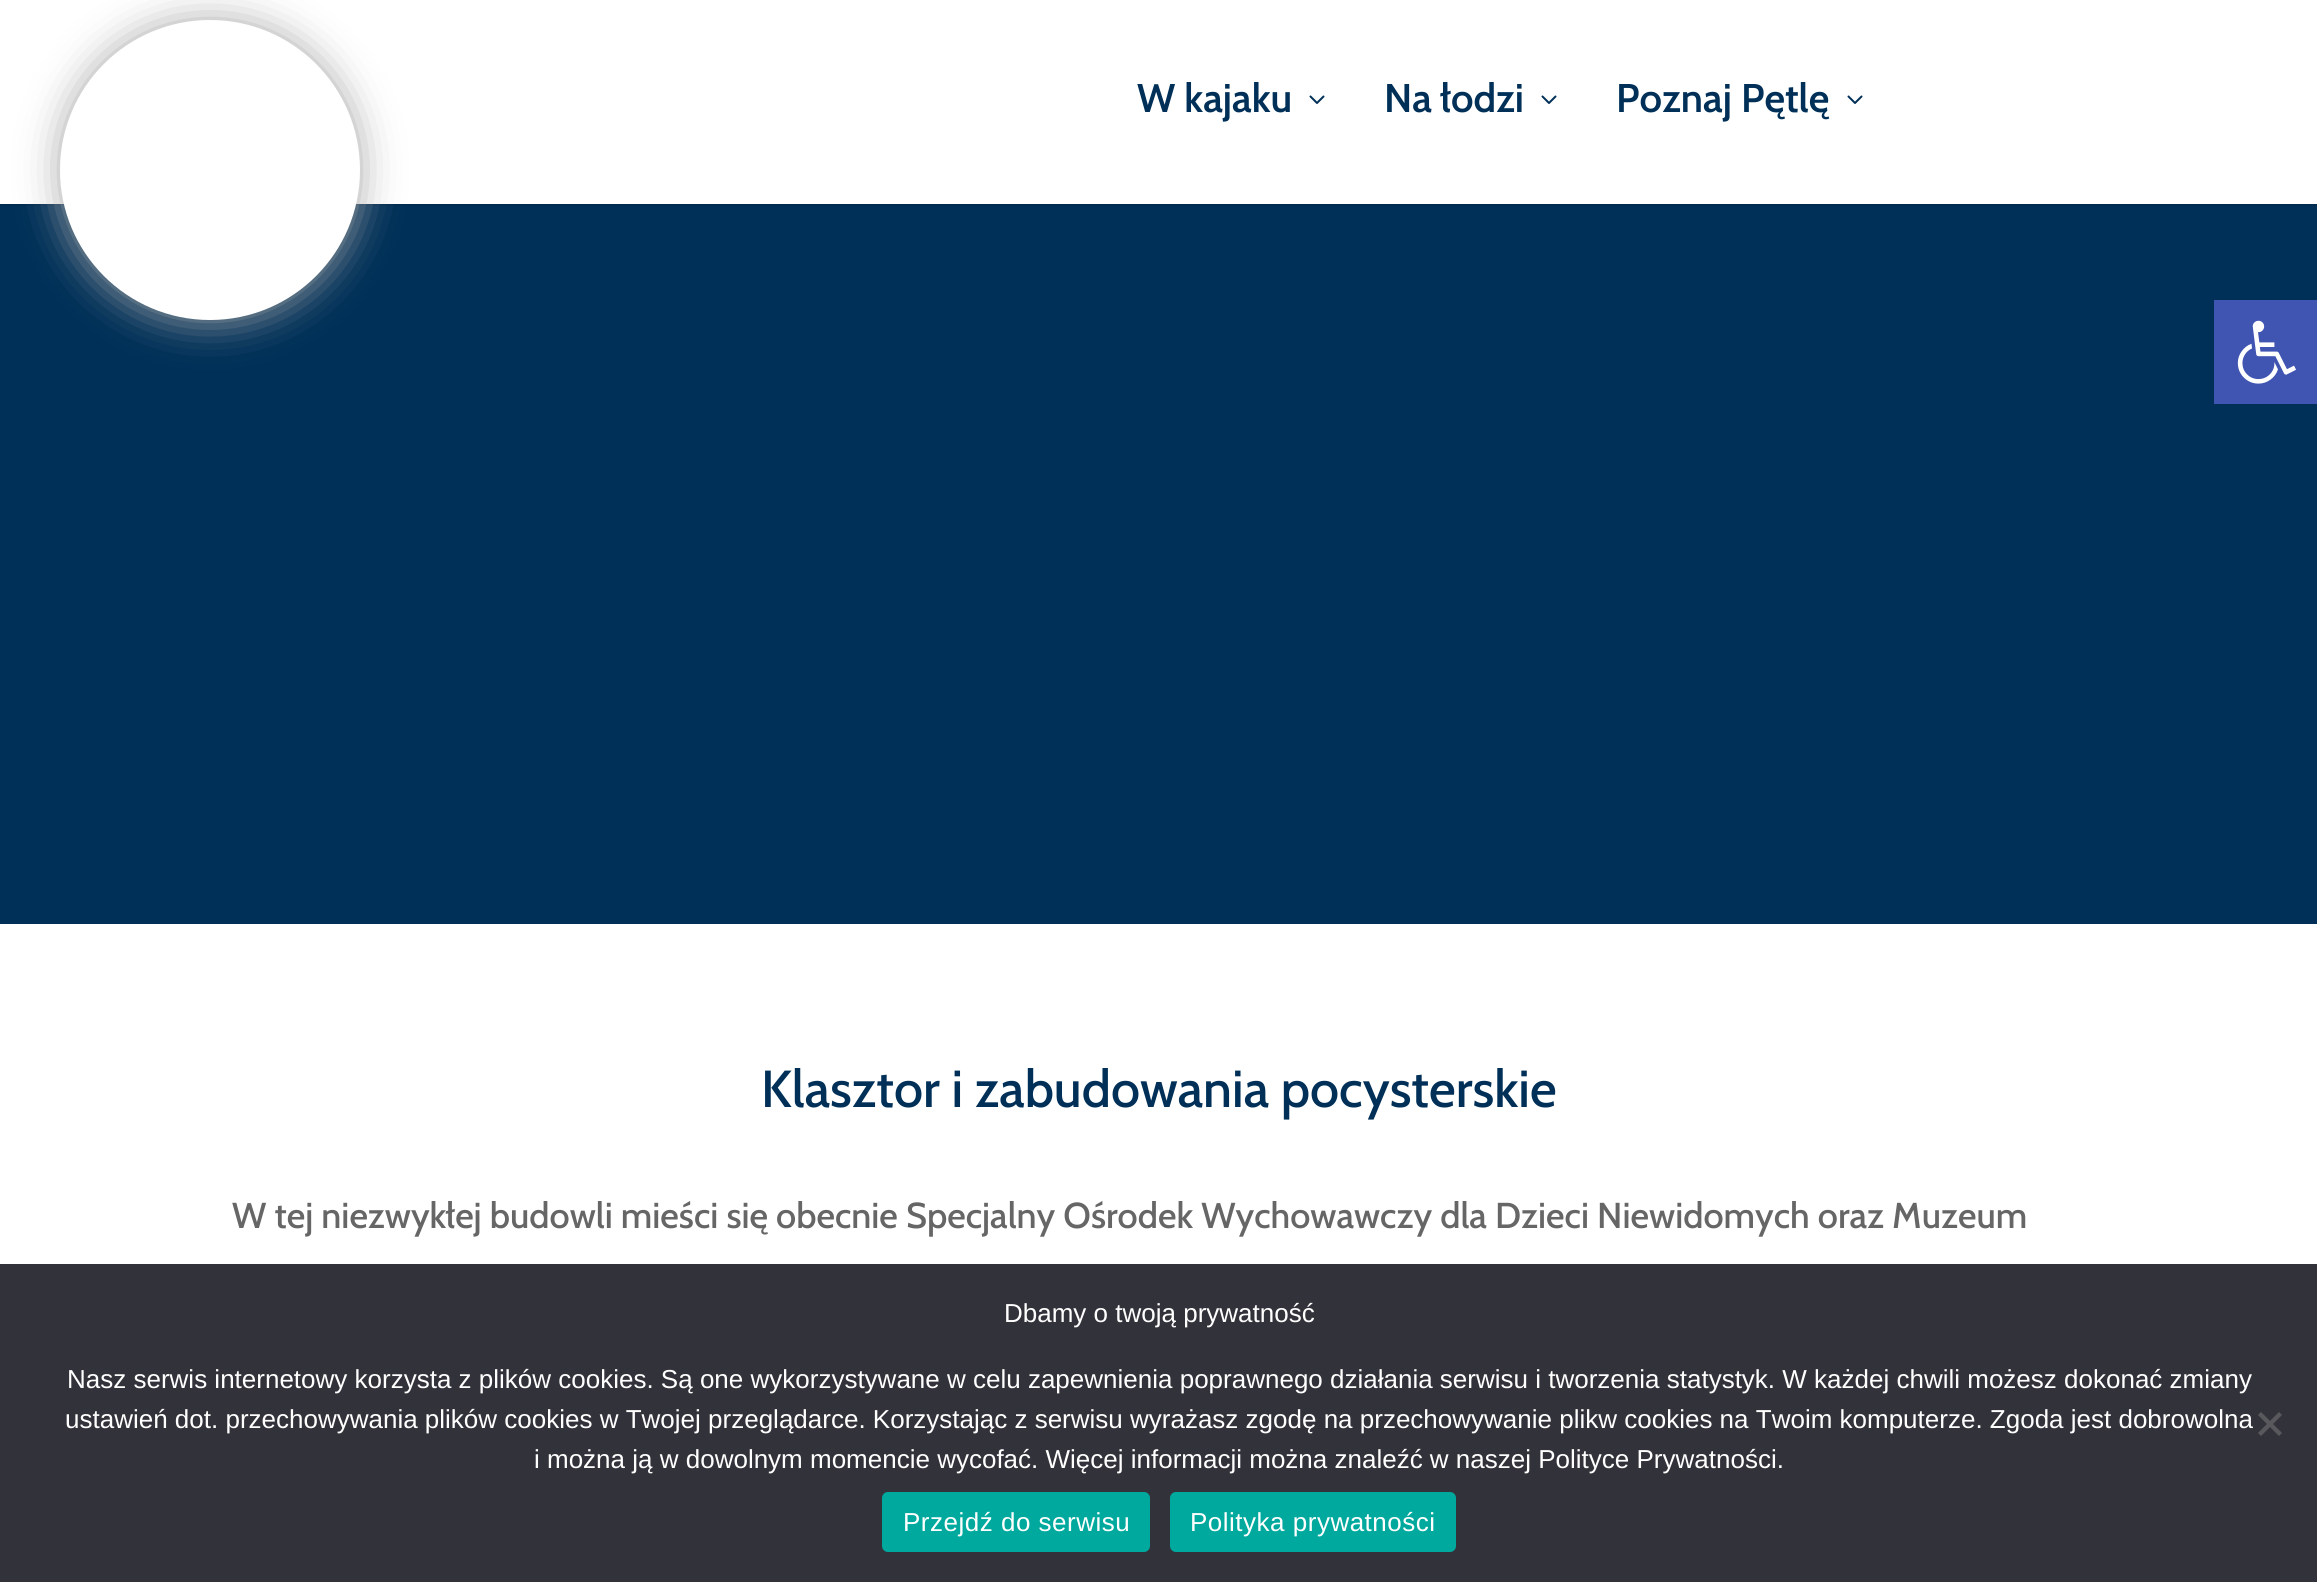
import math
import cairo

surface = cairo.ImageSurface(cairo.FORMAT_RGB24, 2317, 1582)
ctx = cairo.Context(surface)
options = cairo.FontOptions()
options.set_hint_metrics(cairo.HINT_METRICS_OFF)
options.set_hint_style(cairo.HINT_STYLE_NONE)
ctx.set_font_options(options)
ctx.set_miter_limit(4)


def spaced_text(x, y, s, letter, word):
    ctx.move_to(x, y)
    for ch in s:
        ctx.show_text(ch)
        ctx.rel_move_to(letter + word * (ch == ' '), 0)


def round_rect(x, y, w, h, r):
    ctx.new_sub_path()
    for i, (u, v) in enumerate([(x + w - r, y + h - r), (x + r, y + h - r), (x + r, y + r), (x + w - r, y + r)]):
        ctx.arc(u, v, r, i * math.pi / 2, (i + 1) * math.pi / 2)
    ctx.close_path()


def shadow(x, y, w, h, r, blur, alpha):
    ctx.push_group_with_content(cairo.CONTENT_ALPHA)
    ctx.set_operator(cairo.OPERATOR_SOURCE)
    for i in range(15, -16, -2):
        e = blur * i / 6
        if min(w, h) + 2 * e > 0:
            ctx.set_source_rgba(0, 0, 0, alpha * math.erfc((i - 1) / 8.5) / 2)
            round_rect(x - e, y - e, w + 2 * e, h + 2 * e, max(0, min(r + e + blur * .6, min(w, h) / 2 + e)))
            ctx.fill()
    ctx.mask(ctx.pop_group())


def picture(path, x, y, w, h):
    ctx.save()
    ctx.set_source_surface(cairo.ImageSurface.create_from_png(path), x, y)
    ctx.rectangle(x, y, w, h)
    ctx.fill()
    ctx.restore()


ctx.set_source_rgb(1, 1, 1)
ctx.paint()
ctx.set_source_rgb(0, 0.169, 0.31)
ctx.rectangle(0, 204, 2317, 2)
ctx.fill()
ctx.set_source_rgb(0, 0.188, 0.345)
ctx.rectangle(0, 206, 2317, 718)
ctx.fill()
ctx.set_source_rgb(0.667, 0.667, 0.667)
shadow(60, 20, 300, 300, 150, 20, 1)
ctx.set_source_rgb(1, 1, 1)
ctx.arc(210, 170, 150, 0, 2 * math.pi)
ctx.fill()
ctx.select_font_face("Cabin SemiBold")
ctx.set_font_size(40)
ctx.set_source_rgb(0, 0.188, 0.345)
ctx.move_to(1137, 112)
ctx.show_text("W kajaku")
picture("img1.png", 1309, 95, 16, 9)
ctx.move_to(1384, 112)
ctx.show_text("Na łodzi")
picture("img1.png", 1541, 95, 16, 9)
ctx.move_to(1616, 112)
ctx.show_text("Poznaj Pętlę")
picture("img1.png", 1847, 95, 16, 9)
ctx.select_font_face("Cabin Medium")
ctx.set_font_size(52)
ctx.move_to(761, 1107)
ctx.show_text("Klasztor i zabudowania pocysterskie")
ctx.set_font_size(36)
ctx.set_source_rgb(0.4, 0.4, 0.4)
ctx.move_to(232, 1228)
ctx.show_text("W tej niezwykłej budowli mieści się obecnie Specjalny Ośrodek Wychowawczy dla Dzieci Niewidomych oraz Muzeum")
ctx.set_source_rgb(0.251, 0.329, 0.698)
ctx.rectangle(2214, 300, 103, 104)
ctx.fill()
picture("img2.png", 2237, 320, 59, 64)
ctx.set_source_rgb(0.196, 0.196, 0.227)
ctx.rectangle(0, 1264, 2317, 318)
ctx.fill()
ctx.select_font_face("Liberation Sans")
ctx.set_font_size(26)
ctx.set_source_rgb(1, 1, 1)
ctx.move_to(1004, 1322)
ctx.show_text("Dbamy o twoją prywatność")
ctx.move_to(67, 1388)
ctx.show_text("Nasz serwis internetowy korzysta z plików cookies. Są one wykorzystywane w celu zapewnienia poprawnego działania serwisu i tworzenia statystyk. W każdej chwili możesz dokonać zmiany")
ctx.move_to(65, 1428)
ctx.show_text("ustawień dot. przechowywania plików cookies w Twojej przeglądarce. Korzystając z serwisu wyrażasz zgodę na przechowywanie plikw cookies na Twoim komputerze. Zgoda jest dobrowolna")
ctx.move_to(534, 1468)
ctx.show_text("i można ją w dowolnym momencie wycofać. Więcej informacji można znaleźć w naszej Polityce Prywatności.")
ctx.set_source_rgb(0.349, 0.349, 0.365)
ctx.new_path()
ctx.move_to(2279, 1412)
ctx.line_to(2282, 1415)
ctx.line_to(2261, 1436)
ctx.line_to(2258, 1433)
ctx.close_path()
ctx.fill()
ctx.new_path()
ctx.move_to(2258, 1415)
ctx.line_to(2261, 1412)
ctx.line_to(2282, 1433)
ctx.line_to(2279, 1436)
ctx.close_path()
ctx.fill()
ctx.set_source_rgb(0, 0.663, 0.616)
round_rect(882, 1492, 268, 60, 6)
ctx.fill()
ctx.set_source_rgb(1, 1, 1)
spaced_text(903, 1531, "Przejdź do serwisu", 0.5, 0)
ctx.set_source_rgb(0, 0.663, 0.616)
round_rect(1170, 1492, 286, 60, 6)
ctx.fill()
ctx.set_source_rgb(1, 1, 1)
spaced_text(1190, 1531, "Polityka prywatności", 0.5, 0)
surface.write_to_png("page.png")
